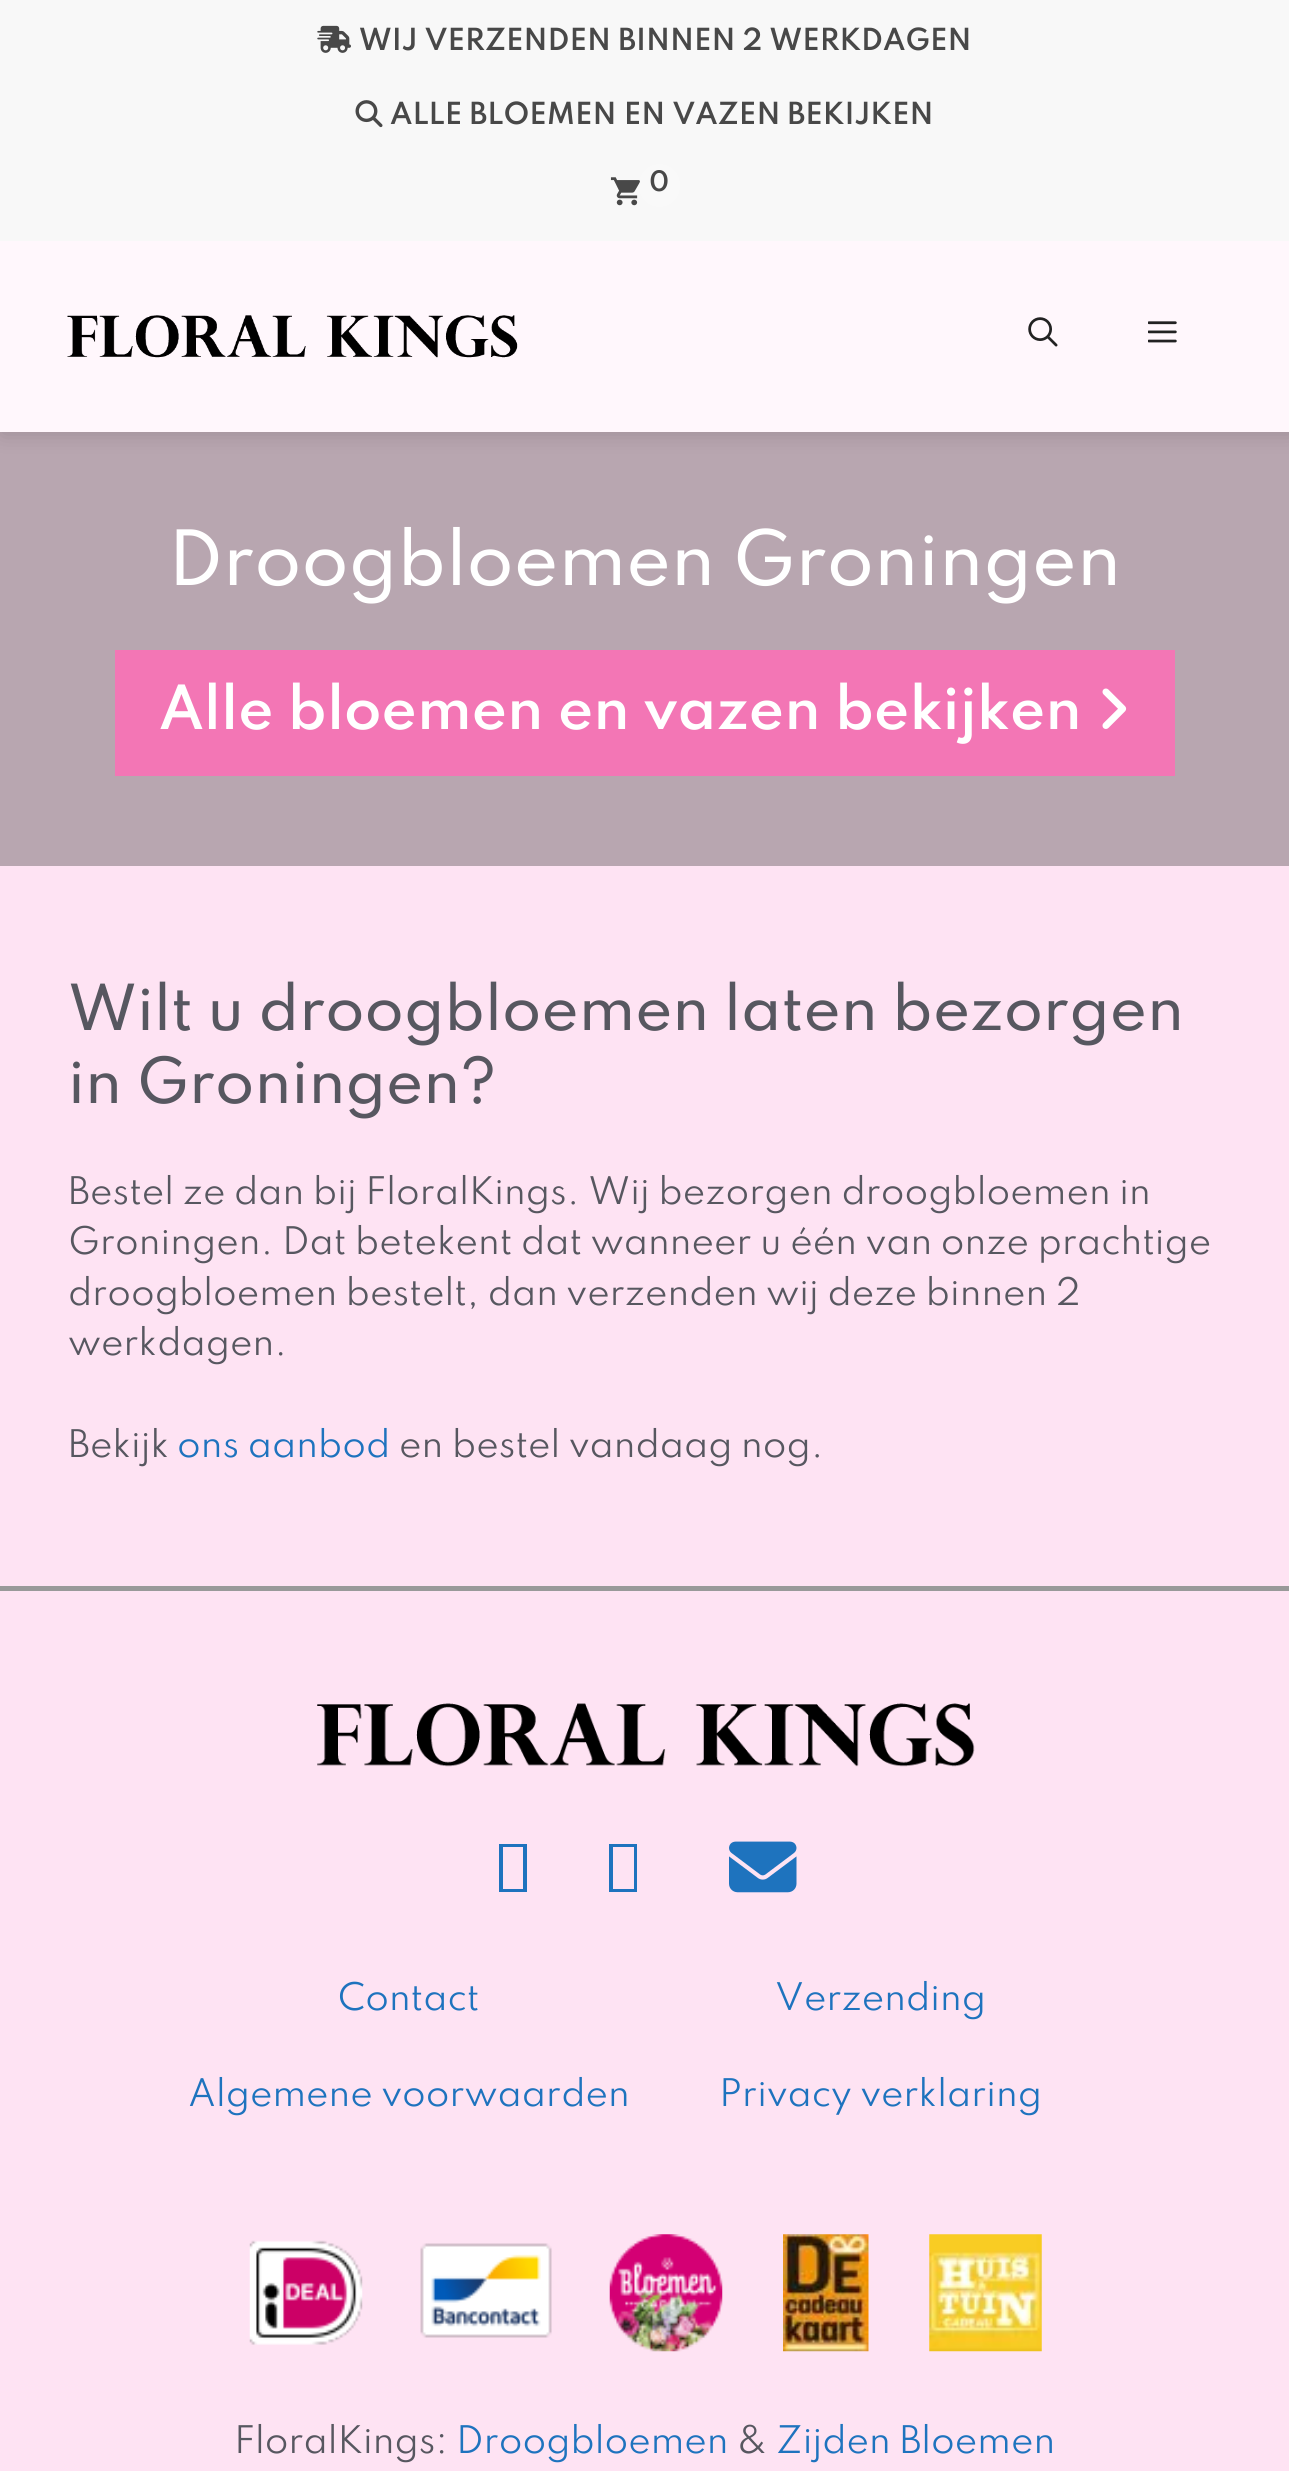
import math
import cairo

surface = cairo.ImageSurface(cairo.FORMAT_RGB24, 1289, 2471)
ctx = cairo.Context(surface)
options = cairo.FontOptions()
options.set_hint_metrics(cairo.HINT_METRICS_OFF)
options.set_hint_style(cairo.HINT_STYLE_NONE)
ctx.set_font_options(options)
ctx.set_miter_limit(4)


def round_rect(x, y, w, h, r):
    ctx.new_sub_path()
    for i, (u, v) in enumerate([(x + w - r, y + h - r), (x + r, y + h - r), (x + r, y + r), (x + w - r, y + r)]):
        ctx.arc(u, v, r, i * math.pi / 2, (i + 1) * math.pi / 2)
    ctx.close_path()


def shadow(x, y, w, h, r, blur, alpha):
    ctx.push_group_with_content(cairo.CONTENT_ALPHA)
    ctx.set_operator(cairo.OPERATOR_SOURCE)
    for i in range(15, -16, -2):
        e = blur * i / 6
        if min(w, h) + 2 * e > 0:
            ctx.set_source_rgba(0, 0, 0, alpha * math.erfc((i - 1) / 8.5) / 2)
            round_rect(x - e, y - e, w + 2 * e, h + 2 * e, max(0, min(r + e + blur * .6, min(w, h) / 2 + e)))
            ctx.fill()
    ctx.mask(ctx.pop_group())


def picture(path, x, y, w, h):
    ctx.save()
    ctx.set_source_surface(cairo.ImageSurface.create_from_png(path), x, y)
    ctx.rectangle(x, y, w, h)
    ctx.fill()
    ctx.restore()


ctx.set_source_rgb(0.996, 0.89, 0.953)
ctx.paint()
ctx.set_source_rgb(0.722, 0.651, 0.69)
ctx.rectangle(0, 432, 1289, 434)
ctx.fill()
ctx.set_source_rgb(0, 0, 0)
shadow(2, 243, 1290, 191, 0, 11, 0.15)
ctx.set_source_rgb(0.969, 0.969, 0.969)
ctx.rectangle(0, 0, 1289, 241)
ctx.fill()
picture("img1.png", 317, 25, 34, 28)
ctx.select_font_face("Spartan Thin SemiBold")
ctx.set_font_size(27)
ctx.set_source_rgb(0.282, 0.282, 0.282)
ctx.move_to(359, 50)
ctx.show_text("WIJ VERZENDEN BINNEN 2 WERKDAGEN")
picture("img2.png", 355, 100, 28, 28)
ctx.move_to(390, 124)
ctx.show_text("ALLE BLOEMEN EN VAZEN BEKIJKEN")
picture("img3.png", 610, 177, 30, 29)
ctx.set_source_rgba(1, 1, 1, 0.1)
round_rect(639, 164, 41, 43, 20.5)
ctx.fill()
ctx.set_font_size(25)
ctx.set_source_rgb(0.282, 0.282, 0.282)
ctx.move_to(649, 191)
ctx.show_text("0")
ctx.set_source_rgb(1, 0.965, 0.988)
ctx.rectangle(0, 241, 1289, 191)
ctx.fill()
picture("img4.png", 67, 315, 451, 43)
picture("img5.png", 1028, 317, 30, 30)
picture("img6.png", 1148, 321, 29, 22)
ctx.select_font_face("Spartan Thin Medium")
ctx.set_font_size(67.5)
ctx.set_source_rgb(1, 1, 1)
ctx.move_to(168, 585)
ctx.show_text("Droogbloemen Groningen")
ctx.set_source_rgb(0.953, 0.463, 0.71)
ctx.rectangle(115, 650, 1060, 126)
ctx.fill()
ctx.select_font_face("Spartan Thin SemiBold")
ctx.set_font_size(54)
ctx.set_source_rgb(1, 1, 1)
ctx.move_to(159, 729)
ctx.show_text("Alle bloemen en vazen bekijken")
picture("img7.png", 1102, 688, 25, 41)
ctx.select_font_face("Spartan Thin Medium")
ctx.set_font_size(56.25)
ctx.set_source_rgb(0.341, 0.341, 0.376)
ctx.move_to(68, 1030)
ctx.show_text("Wilt u droogbloemen laten bezorgen")
ctx.move_to(68, 1103)
ctx.show_text("in Groningen?")
ctx.select_font_face("Spartan Thin")
ctx.set_font_size(33.75)
ctx.move_to(68, 1204)
ctx.show_text("Bestel ze dan bij FloralKings. Wij bezorgen droogbloemen in")
ctx.move_to(68, 1254)
ctx.show_text("Groningen. Dat betekent dat wanneer u één van onze prachtige")
ctx.move_to(68, 1305)
ctx.show_text("droogbloemen bestelt, dan verzenden wij deze binnen 2")
ctx.move_to(68, 1355)
ctx.show_text("werkdagen.")
ctx.move_to(68, 1457)
ctx.show_text("Bekijk")
ctx.set_source_rgb(0.118, 0.451, 0.745)
ctx.move_to(177, 1457)
ctx.show_text("ons aanbod")
ctx.set_source_rgb(0.341, 0.341, 0.376)
ctx.move_to(399, 1457)
ctx.show_text("en bestel vandaag nog.")
ctx.set_source_rgb(0.6, 0.6, 0.6)
ctx.rectangle(0, 1586, 1289, 5)
ctx.fill()
picture("img8.png", 317, 1703, 658, 64)
ctx.set_source_rgb(0.118, 0.451, 0.745)
ctx.new_path()
ctx.move_to(499, 1892)
ctx.line_to(499, 1844)
ctx.line_to(527, 1844)
ctx.line_to(527, 1892)
ctx.close_path()
ctx.move_to(503, 1889)
ctx.line_to(523, 1889)
ctx.line_to(523, 1847)
ctx.line_to(503, 1847)
ctx.close_path()
ctx.fill()
ctx.new_path()
ctx.move_to(609, 1892)
ctx.line_to(609, 1844)
ctx.line_to(637, 1844)
ctx.line_to(637, 1892)
ctx.close_path()
ctx.move_to(613, 1889)
ctx.line_to(634, 1889)
ctx.line_to(634, 1847)
ctx.line_to(613, 1847)
ctx.close_path()
ctx.fill()
picture("img9.png", 729, 1841, 68, 52)
ctx.move_to(338, 2010)
ctx.show_text("Contact")
ctx.move_to(775, 2010)
ctx.show_text("Verzending")
ctx.move_to(188, 2106)
ctx.show_text("Algemene voorwaarden")
ctx.move_to(719, 2106)
ctx.show_text("Privacy verklaring")
picture("img10.png", 249, 2240, 114, 105)
picture("img11.png", 420, 2243, 132, 95)
picture("img12.png", 609, 2234, 114, 118)
picture("img13.png", 783, 2234, 86, 118)
picture("img14.png", 929, 2234, 113, 118)
ctx.set_source_rgb(0.341, 0.341, 0.376)
ctx.move_to(234, 2453)
ctx.show_text("FloralKings:")
ctx.set_source_rgb(0.118, 0.451, 0.745)
ctx.move_to(456, 2453)
ctx.show_text("Droogbloemen")
ctx.set_source_rgb(0.341, 0.341, 0.376)
ctx.move_to(737, 2453)
ctx.show_text("&")
ctx.set_source_rgb(0.118, 0.451, 0.745)
ctx.move_to(776, 2453)
ctx.show_text("Zijden Bloemen")
surface.write_to_png("page.png")
